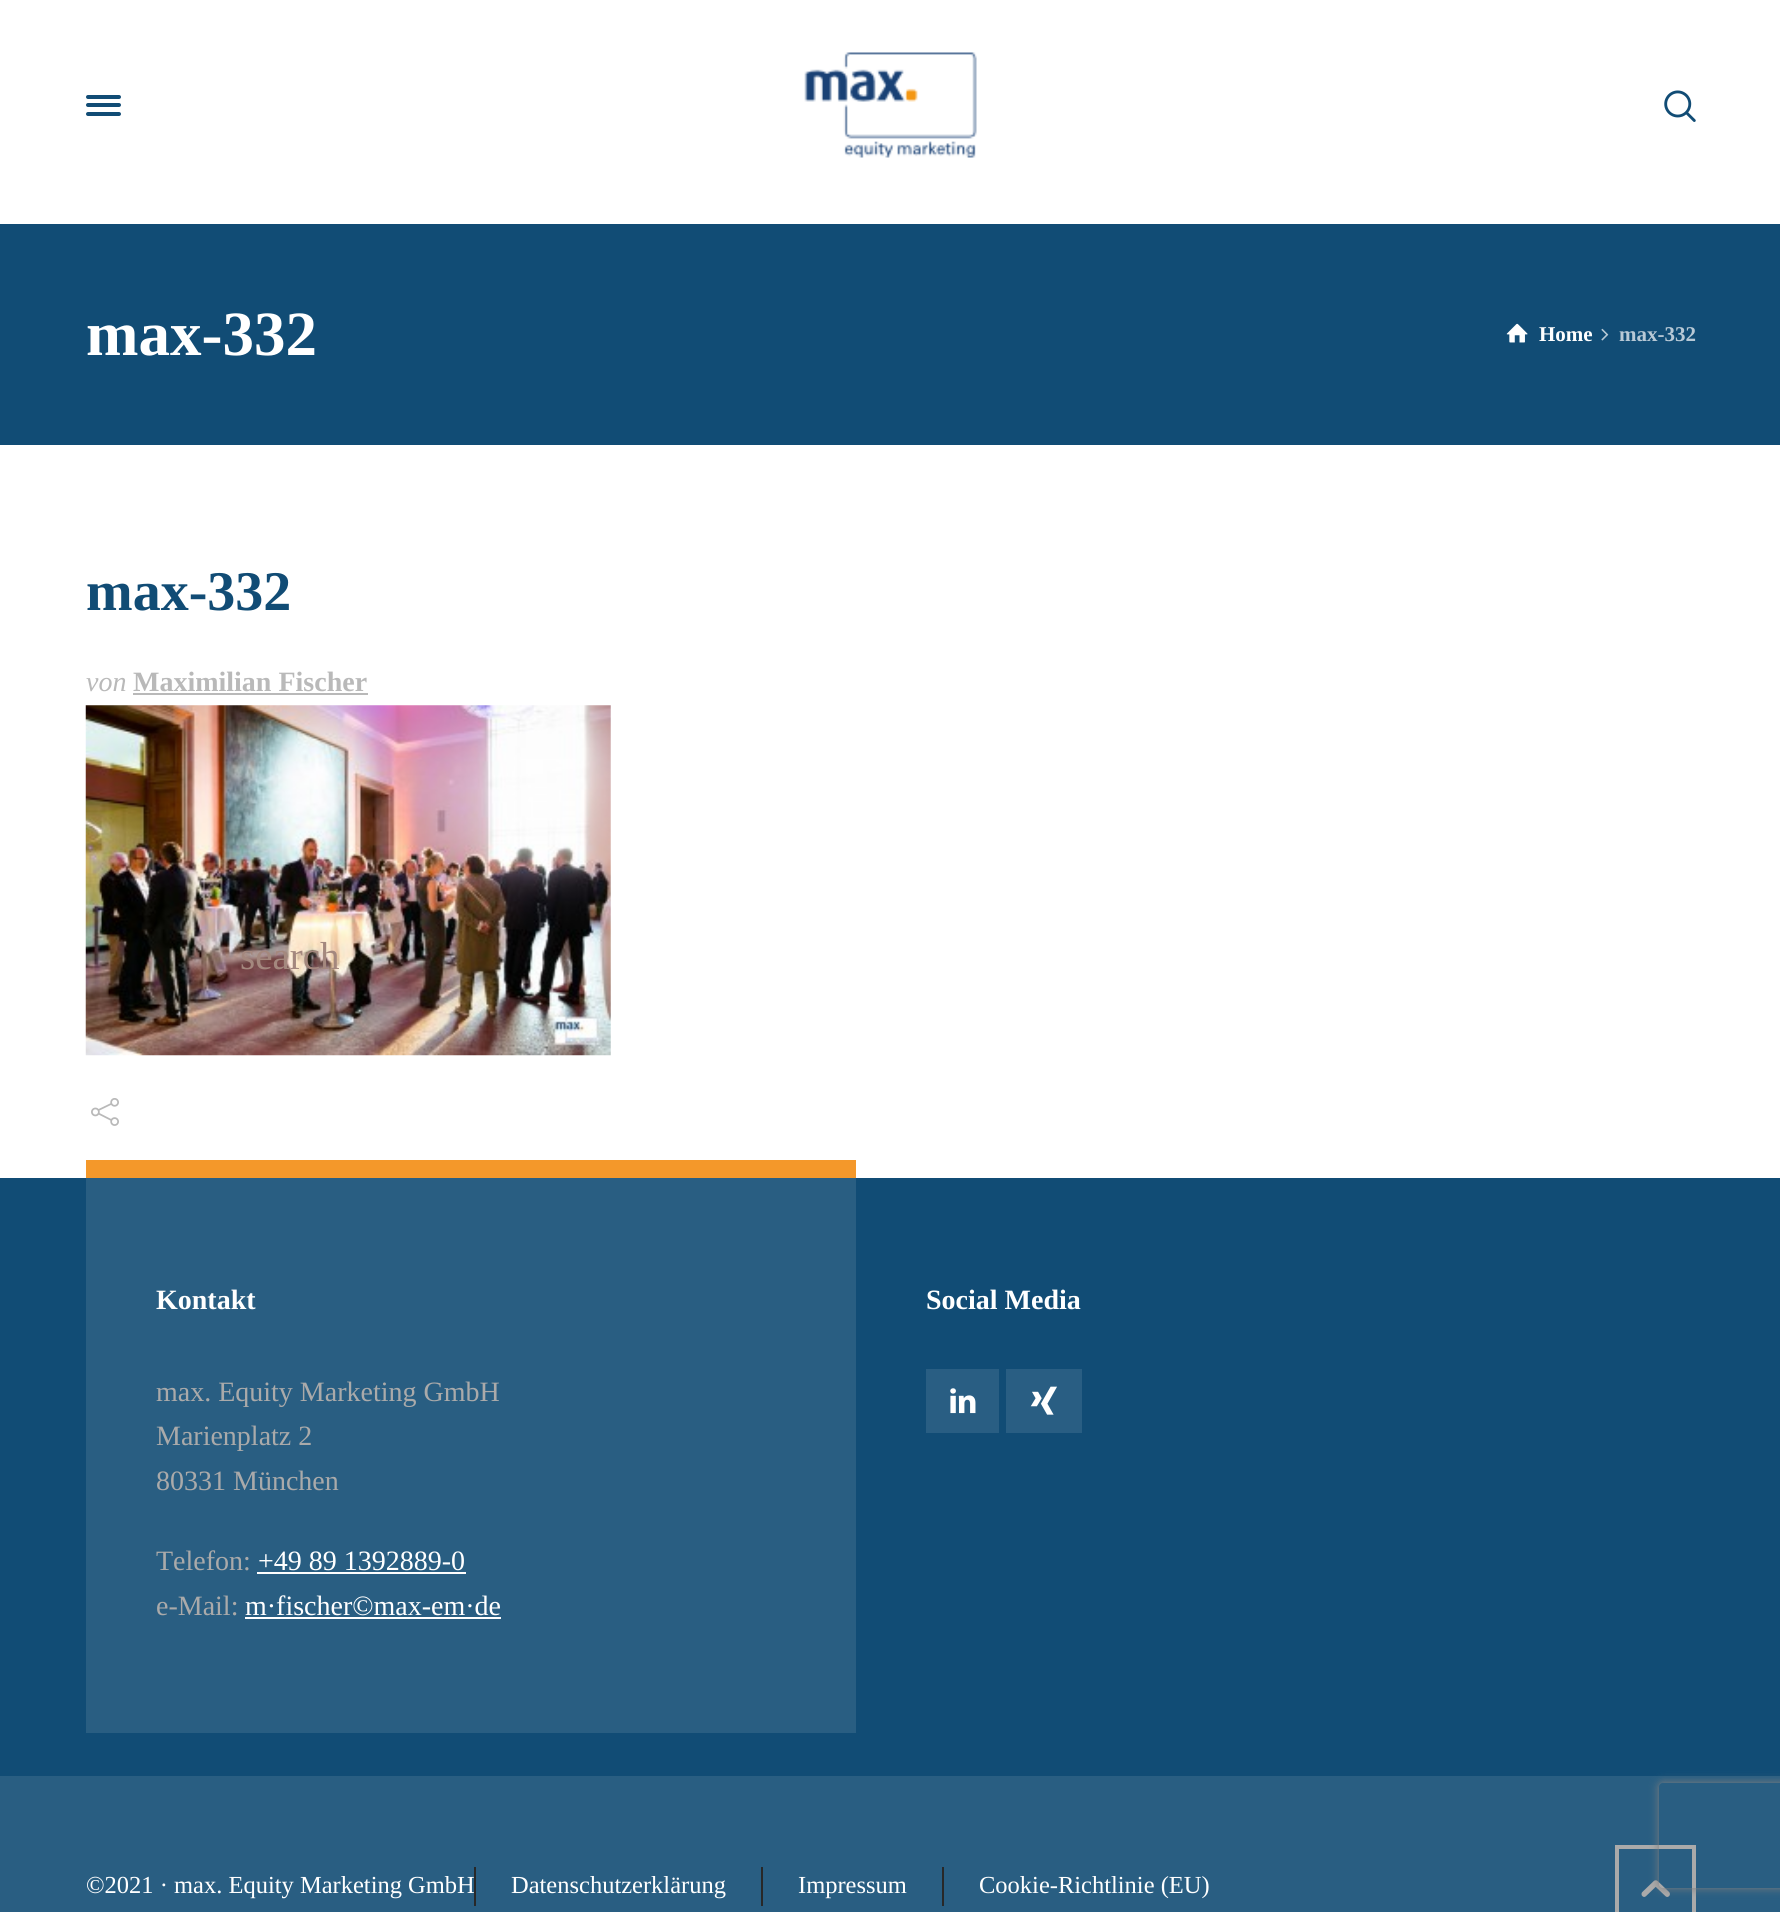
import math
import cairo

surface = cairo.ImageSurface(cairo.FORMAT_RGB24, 1780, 1912)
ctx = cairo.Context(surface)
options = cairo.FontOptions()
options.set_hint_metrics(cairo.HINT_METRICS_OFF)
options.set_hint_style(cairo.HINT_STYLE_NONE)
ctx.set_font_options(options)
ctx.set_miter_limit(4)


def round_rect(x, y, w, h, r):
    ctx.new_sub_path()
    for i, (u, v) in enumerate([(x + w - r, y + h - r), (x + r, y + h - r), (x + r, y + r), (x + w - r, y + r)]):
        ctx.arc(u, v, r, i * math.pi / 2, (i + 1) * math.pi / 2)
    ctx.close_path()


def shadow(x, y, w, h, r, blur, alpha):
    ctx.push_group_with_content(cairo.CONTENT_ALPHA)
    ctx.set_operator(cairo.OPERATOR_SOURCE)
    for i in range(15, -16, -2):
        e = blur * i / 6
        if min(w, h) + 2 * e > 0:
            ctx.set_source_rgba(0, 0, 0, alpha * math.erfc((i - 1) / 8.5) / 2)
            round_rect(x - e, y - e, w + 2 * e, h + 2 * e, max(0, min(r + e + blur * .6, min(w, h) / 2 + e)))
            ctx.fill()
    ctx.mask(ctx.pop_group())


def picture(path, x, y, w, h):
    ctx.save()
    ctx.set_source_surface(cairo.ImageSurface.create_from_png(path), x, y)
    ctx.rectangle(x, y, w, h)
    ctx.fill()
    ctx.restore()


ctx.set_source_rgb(1, 1, 1)
ctx.paint()
ctx.set_source_rgb(0.067, 0.298, 0.459)
round_rect(86, 95, 35, 4, 2)
ctx.fill()
round_rect(86, 103, 35, 4, 2)
ctx.fill()
round_rect(86, 112, 35, 4, 2)
ctx.fill()
picture("img1.png", 804, 52, 173, 106)
picture("img2.png", 1664, 90, 32, 32)
ctx.rectangle(0, 224, 1780, 221)
ctx.fill()
ctx.select_font_face("Liberation Serif", cairo.FONT_SLANT_NORMAL, cairo.FONT_WEIGHT_BOLD)
ctx.set_font_size(63)
ctx.set_source_rgb(1, 1, 1)
ctx.move_to(86, 355)
ctx.show_text("max-332")
picture("img3.png", 1506, 323, 22, 20)
ctx.set_font_size(21)
ctx.move_to(1539, 341)
ctx.show_text("Home")
picture("img4.png", 1601, 328, 8, 13)
ctx.set_source_rgb(0.722, 0.788, 0.839)
ctx.move_to(1619, 341)
ctx.show_text("max-332")
ctx.set_font_size(56)
ctx.set_source_rgb(0.067, 0.298, 0.459)
ctx.move_to(86, 610)
ctx.show_text("max-332")
ctx.select_font_face("Liberation Serif", cairo.FONT_SLANT_ITALIC)
ctx.set_font_size(28)
ctx.set_source_rgb(0.725, 0.725, 0.725)
ctx.move_to(86, 691)
ctx.show_text("von")
ctx.select_font_face("Liberation Serif", cairo.FONT_SLANT_NORMAL, cairo.FONT_WEIGHT_BOLD)
ctx.move_to(133, 691)
ctx.show_text("Maximilian Fischer")
ctx.rectangle(133, 693, 235, 2)
ctx.fill()
picture("img5.png", 85, 705, 526, 351)
picture("img6.png", 91, 1098, 28, 28)
ctx.set_source_rgb(0.067, 0.298, 0.459)
ctx.rectangle(0, 1178, 1780, 598)
ctx.fill()
ctx.set_source_rgb(0.161, 0.369, 0.51)
ctx.rectangle(86, 1178, 770, 555)
ctx.fill()
ctx.set_source_rgb(0.957, 0.596, 0.165)
ctx.rectangle(86, 1160, 770, 18)
ctx.fill()
ctx.set_source_rgb(1, 1, 1)
ctx.move_to(156, 1309)
ctx.show_text("Kontakt")
ctx.select_font_face("Liberation Serif")
ctx.set_source_rgb(0.667, 0.667, 0.667)
ctx.move_to(156, 1401)
ctx.show_text("max. Equity Marketing GmbH")
ctx.move_to(156, 1445)
ctx.show_text("Marienplatz 2")
ctx.move_to(156, 1490)
ctx.show_text("80331 München")
ctx.move_to(156, 1570)
ctx.show_text("Telefon:")
ctx.set_source_rgb(1, 1, 1)
ctx.move_to(258, 1570)
ctx.show_text("+49 89 1392889-0")
ctx.rectangle(257, 1572, 209, 2)
ctx.fill()
ctx.set_source_rgb(0.667, 0.667, 0.667)
ctx.move_to(156, 1615)
ctx.show_text("e-Mail:")
ctx.set_source_rgb(1, 1, 1)
ctx.move_to(245, 1615)
ctx.show_text("m·fischer©max-em·de")
ctx.rectangle(245, 1617, 256, 2)
ctx.fill()
ctx.select_font_face("Liberation Serif", cairo.FONT_SLANT_NORMAL, cairo.FONT_WEIGHT_BOLD)
ctx.move_to(926, 1309)
ctx.show_text("Social Media")
ctx.set_source_rgb(0.161, 0.369, 0.514)
ctx.rectangle(926, 1369, 73, 64)
ctx.fill()
picture("img7.png", 950, 1388, 26, 26)
ctx.rectangle(1006, 1369, 76, 64)
ctx.fill()
picture("img8.png", 1030, 1386, 27, 29)
ctx.set_source_rgb(0.161, 0.369, 0.51)
ctx.rectangle(0, 1776, 1780, 136)
ctx.fill()
ctx.select_font_face("Liberation Serif")
ctx.set_font_size(24.5)
ctx.set_source_rgb(1, 1, 1)
ctx.move_to(86, 1893)
ctx.show_text("©2021 · max. Equity Marketing GmbH")
ctx.set_source_rgb(0.157, 0.157, 0.157)
ctx.rectangle(474, 1867, 2, 39)
ctx.fill()
ctx.set_source_rgb(1, 1, 1)
ctx.move_to(511, 1893)
ctx.show_text("Datenschutzerklärung")
ctx.set_source_rgb(0.157, 0.157, 0.157)
ctx.rectangle(761, 1867, 2, 39)
ctx.fill()
ctx.set_source_rgb(1, 1, 1)
ctx.move_to(798, 1893)
ctx.show_text("Impressum")
ctx.set_source_rgb(0.157, 0.157, 0.157)
ctx.rectangle(942, 1867, 2, 39)
ctx.fill()
ctx.set_source_rgb(1, 1, 1)
ctx.move_to(979, 1893)
ctx.show_text("Cookie-Richtlinie (EU)")
ctx.rectangle(1617, 1847, 77, 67)
ctx.set_source_rgb(0.667, 0.667, 0.667)
ctx.set_line_width(4)
ctx.stroke()
picture("img9.png", 1641, 1880, 29, 17)
ctx.set_font_size(39)
ctx.set_source_rgb(0.643, 0.533, 0.494)
ctx.move_to(240, 969)
ctx.show_text("search")
ctx.save()
ctx.set_fill_rule(cairo.FILL_RULE_EVEN_ODD)
ctx.new_path()
ctx.move_to(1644, 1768)
ctx.line_to(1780, 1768)
ctx.line_to(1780, 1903)
ctx.line_to(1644, 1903)
ctx.close_path()
ctx.move_to(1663, 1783)
ctx.line_to(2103, 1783)
ctx.curve_to(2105, 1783, 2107, 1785, 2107, 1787)
ctx.line_to(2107, 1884)
ctx.curve_to(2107, 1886, 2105, 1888, 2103, 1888)
ctx.line_to(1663, 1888)
ctx.curve_to(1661, 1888, 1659, 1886, 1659, 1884)
ctx.line_to(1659, 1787)
ctx.curve_to(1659, 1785, 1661, 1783, 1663, 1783)
ctx.close_path()
ctx.clip()
ctx.set_source_rgb(0.502, 0.502, 0.502)
shadow(1659, 1783, 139, 105, 4, 4.5, 1)
ctx.restore()
surface.write_to_png("page.png")
